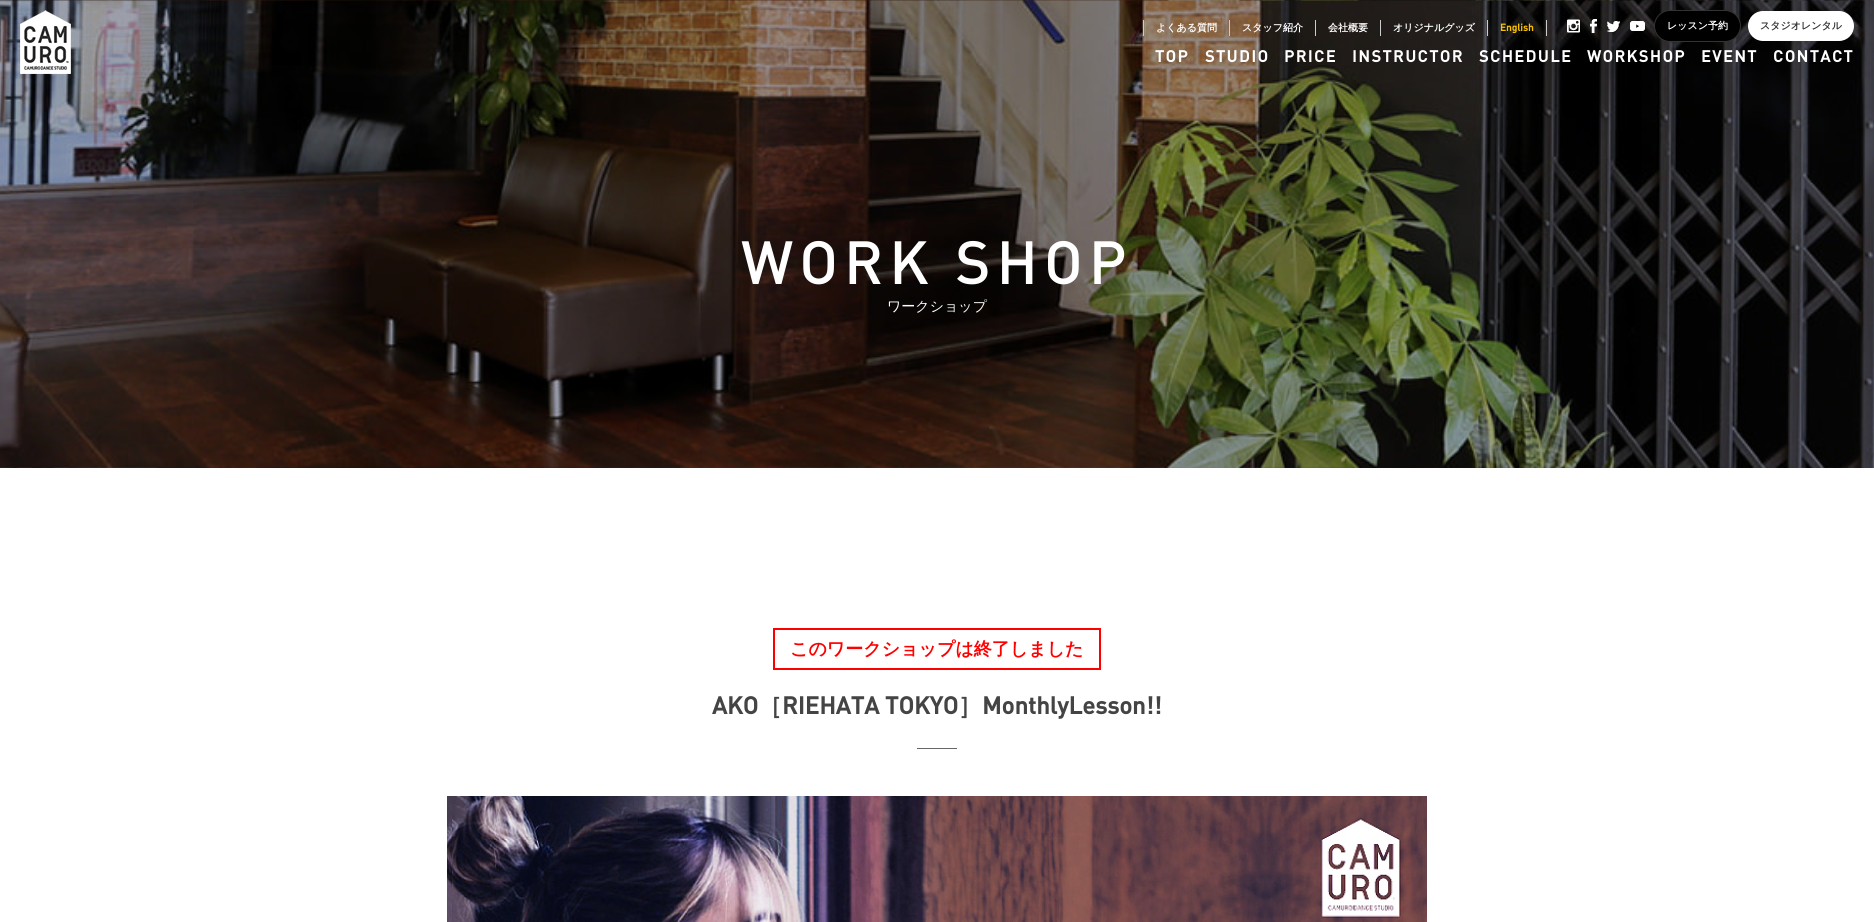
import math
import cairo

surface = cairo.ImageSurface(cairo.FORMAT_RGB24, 1874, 922)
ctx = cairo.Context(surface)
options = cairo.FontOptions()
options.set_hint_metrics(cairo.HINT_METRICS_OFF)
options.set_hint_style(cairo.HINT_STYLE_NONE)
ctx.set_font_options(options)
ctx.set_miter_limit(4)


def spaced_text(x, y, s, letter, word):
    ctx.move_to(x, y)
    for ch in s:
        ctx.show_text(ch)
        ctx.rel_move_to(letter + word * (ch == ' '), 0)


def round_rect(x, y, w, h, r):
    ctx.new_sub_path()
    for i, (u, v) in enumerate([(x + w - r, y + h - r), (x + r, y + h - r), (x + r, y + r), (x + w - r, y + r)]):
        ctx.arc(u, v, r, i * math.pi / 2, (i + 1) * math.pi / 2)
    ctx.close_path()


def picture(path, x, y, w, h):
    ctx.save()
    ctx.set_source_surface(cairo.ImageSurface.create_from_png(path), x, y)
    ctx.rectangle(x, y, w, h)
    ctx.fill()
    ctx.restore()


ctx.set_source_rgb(1, 1, 1)
ctx.paint()
picture("img6.png", 0, 0, 1874, 468)
picture("img1.png", 20, 10, 51, 64)
ctx.set_source_rgb(0.8, 0.8, 0.8)
ctx.rectangle(1546, 20, 1, 16)
ctx.fill()
ctx.rectangle(1143, 20, 1, 16)
ctx.fill()
ctx.select_font_face("WenQuanYi Zen Hei", cairo.FONT_SLANT_NORMAL, cairo.FONT_WEIGHT_BOLD)
ctx.set_font_size(10)
ctx.set_source_rgb(1, 1, 1)
ctx.move_to(1156, 31)
ctx.show_text("よくある質問")
ctx.set_source_rgb(0.8, 0.8, 0.8)
ctx.rectangle(1229, 20, 1, 16)
ctx.fill()
ctx.set_source_rgb(1, 1, 1)
ctx.move_to(1242, 31)
ctx.show_text("スタッフ紹介")
ctx.set_source_rgb(0.8, 0.8, 0.8)
ctx.rectangle(1315, 20, 1, 16)
ctx.fill()
ctx.set_source_rgb(1, 1, 1)
ctx.move_to(1328, 31)
ctx.show_text("会社概要")
ctx.set_source_rgb(0.8, 0.8, 0.8)
ctx.rectangle(1380, 20, 1, 16)
ctx.fill()
ctx.set_source_rgb(1, 1, 1)
ctx.move_to(1393, 31)
ctx.show_text("オリジナルグッズ")
ctx.set_source_rgb(0.8, 0.8, 0.8)
ctx.rectangle(1487, 20, 1, 16)
ctx.fill()
ctx.select_font_face("DIN", cairo.FONT_SLANT_NORMAL, cairo.FONT_WEIGHT_BOLD)
ctx.set_source_rgb(0.976, 0.765, 0)
ctx.move_to(1500, 31)
ctx.show_text("English")
picture("img2.png", 1567, 19, 13, 14)
picture("img3.png", 1590, 19, 7, 14)
picture("img4.png", 1607, 21, 13, 11)
picture("img5.png", 1630, 21, 15, 10)
ctx.set_source_rgb(0, 0, 0)
round_rect(1654.5, 10.5, 86, 31, 15.5)
ctx.fill_preserve()
ctx.set_source_rgb(0.2, 0.2, 0.2)
ctx.set_line_width(1)
ctx.stroke()
ctx.select_font_face("WenQuanYi Zen Hei", cairo.FONT_SLANT_NORMAL, cairo.FONT_WEIGHT_BOLD)
ctx.set_source_rgb(1, 1, 1)
ctx.move_to(1667, 29)
ctx.show_text("レッスン予約")
round_rect(1748, 11, 106, 30, 15)
ctx.fill()
ctx.set_source_rgb(0.2, 0.2, 0.2)
ctx.move_to(1760, 29)
ctx.show_text("スタジオレンタル")
ctx.select_font_face("DIN", cairo.FONT_SLANT_NORMAL, cairo.FONT_WEIGHT_BOLD)
ctx.set_font_size(16)
ctx.set_source_rgb(1, 1, 1)
spaced_text(1155, 62, "TOP", 1.6, 0)
spaced_text(1205, 62, "STUDIO", 1.6, 0)
spaced_text(1284, 62, "PRICE", 1.6, 0)
spaced_text(1352, 62, "INSTRUCTOR", 1.6, 0)
spaced_text(1479, 62, "SCHEDULE", 1.6, 0)
spaced_text(1587, 62, "WORKSHOP", 1.6, 0)
spaced_text(1701, 62, "EVENT", 1.6, 0)
spaced_text(1773, 62, "CONTACT", 1.6, 0)
ctx.select_font_face("DIN Medium")
ctx.set_font_size(60)
spaced_text(741, 284, "WORK SHOP", 6, 0)
ctx.select_font_face("WenQuanYi Zen Hei Medium")
ctx.set_font_size(14)
ctx.move_to(887, 311)
ctx.show_text("ワークショップ")
ctx.rectangle(774, 629, 326, 40)
ctx.set_source_rgb(1, 0, 0)
ctx.set_line_width(2)
ctx.stroke()
ctx.select_font_face("WenQuanYi Zen Hei", cairo.FONT_SLANT_NORMAL, cairo.FONT_WEIGHT_BOLD)
ctx.set_font_size(18)
ctx.move_to(790, 655)
ctx.show_text("このワークショップは終了しました")
ctx.select_font_face("DIN", cairo.FONT_SLANT_NORMAL, cairo.FONT_WEIGHT_BOLD)
ctx.set_font_size(24)
ctx.set_source_rgb(0.267, 0.267, 0.267)
ctx.move_to(712, 714)
ctx.show_text("AKO")
ctx.select_font_face("WenQuanYi Zen Hei", cairo.FONT_SLANT_NORMAL, cairo.FONT_WEIGHT_BOLD)
ctx.move_to(758, 714)
ctx.show_text("［")
ctx.select_font_face("DIN", cairo.FONT_SLANT_NORMAL, cairo.FONT_WEIGHT_BOLD)
ctx.move_to(782, 714)
ctx.show_text("RIEHATA TOKYO")
ctx.select_font_face("WenQuanYi Zen Hei", cairo.FONT_SLANT_NORMAL, cairo.FONT_WEIGHT_BOLD)
ctx.move_to(958, 714)
ctx.show_text("］")
ctx.select_font_face("DIN", cairo.FONT_SLANT_NORMAL, cairo.FONT_WEIGHT_BOLD)
ctx.move_to(982, 714)
ctx.show_text("MonthlyLesson!!")
ctx.set_source_rgb(0.4, 0.4, 0.4)
ctx.rectangle(917, 748, 40, 1)
ctx.fill()
picture("img7.png", 447, 796, 980, 126)
surface.write_to_png("page.png")
